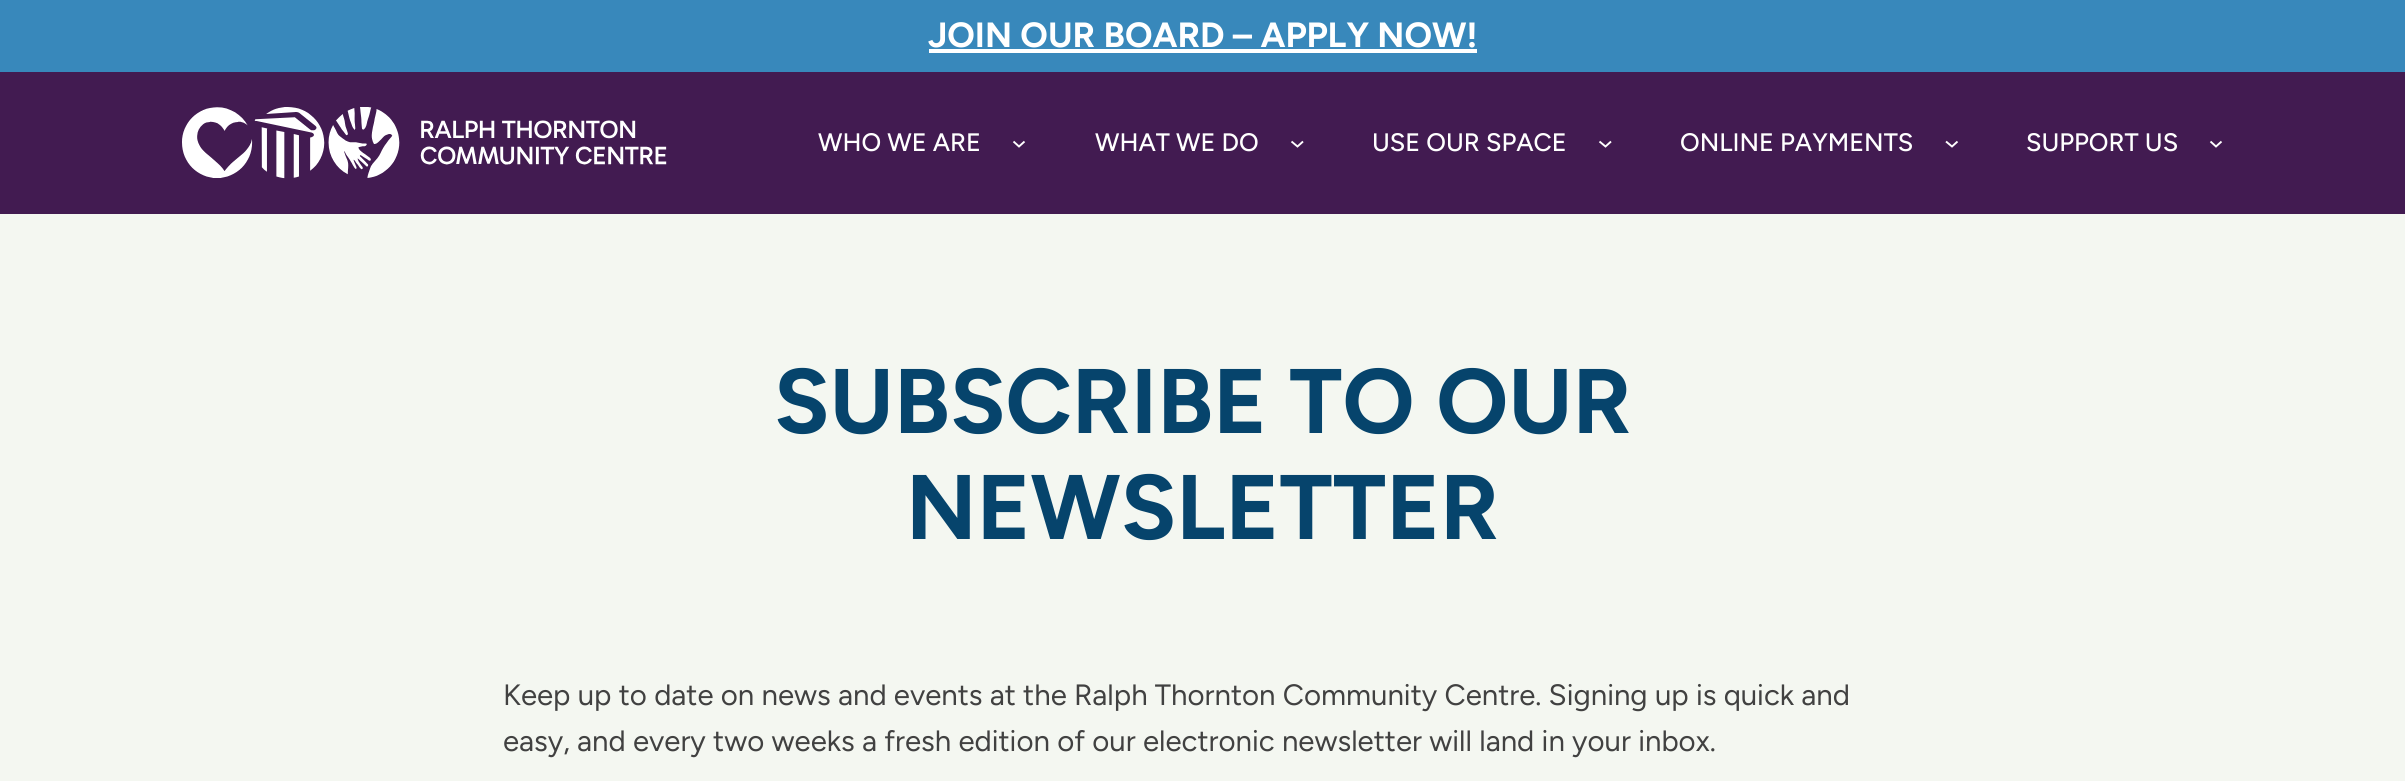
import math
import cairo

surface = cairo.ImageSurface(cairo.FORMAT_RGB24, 2405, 781)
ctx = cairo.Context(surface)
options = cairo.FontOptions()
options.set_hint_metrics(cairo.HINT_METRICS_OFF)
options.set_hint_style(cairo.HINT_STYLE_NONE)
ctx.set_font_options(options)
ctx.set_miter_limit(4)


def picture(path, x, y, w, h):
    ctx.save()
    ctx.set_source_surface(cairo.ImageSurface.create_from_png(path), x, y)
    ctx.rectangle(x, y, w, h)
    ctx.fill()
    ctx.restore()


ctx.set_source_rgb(0.957, 0.965, 0.945)
ctx.paint()
ctx.set_source_rgb(0.22, 0.533, 0.733)
ctx.rectangle(0, 0, 2405, 72)
ctx.fill()
ctx.select_font_face("Figtree", cairo.FONT_SLANT_NORMAL, cairo.FONT_WEIGHT_BOLD)
ctx.set_font_size(35)
ctx.set_source_rgb(1, 1, 1)
ctx.move_to(928, 47)
ctx.show_text("JOIN OUR BOARD – APPLY NOW!")
ctx.rectangle(929, 49, 548, 4)
ctx.fill()
ctx.set_source_rgb(0.259, 0.106, 0.318)
ctx.rectangle(0, 72, 2405, 142)
ctx.fill()
picture("img1.png", 182, 107, 485, 72)
ctx.select_font_face("Figtree Medium")
ctx.set_font_size(25.25)
ctx.set_source_rgb(1, 1, 1)
ctx.move_to(818, 151)
ctx.show_text("WHO WE ARE")
ctx.new_path()
ctx.move_to(1013.5, 141.5)
ctx.line_to(1019, 146.5)
ctx.line_to(1024.5, 141.5)
ctx.set_line_width(1.9)
ctx.stroke()
ctx.move_to(1095, 151)
ctx.show_text("WHAT WE DO")
ctx.new_path()
ctx.move_to(1291.5, 141.5)
ctx.line_to(1297.5, 146.5)
ctx.line_to(1303, 141.5)
ctx.stroke()
ctx.move_to(1372, 151)
ctx.show_text("USE OUR SPACE")
ctx.new_path()
ctx.move_to(1599.5, 141.5)
ctx.line_to(1605.5, 146.5)
ctx.line_to(1611, 141.5)
ctx.stroke()
ctx.move_to(1680, 151)
ctx.show_text("ONLINE PAYMENTS")
ctx.new_path()
ctx.move_to(1946, 141.5)
ctx.line_to(1952, 146.5)
ctx.line_to(1957.5, 141.5)
ctx.stroke()
ctx.move_to(2026, 151)
ctx.show_text("SUPPORT US")
ctx.new_path()
ctx.move_to(2210.5, 141.5)
ctx.line_to(2216, 146.5)
ctx.line_to(2221.5, 141.5)
ctx.stroke()
ctx.select_font_face("Figtree", cairo.FONT_SLANT_NORMAL, cairo.FONT_WEIGHT_BOLD)
ctx.set_font_size(91.5)
ctx.set_source_rgb(0.024, 0.267, 0.424)
ctx.move_to(774, 433)
ctx.show_text("SUBSCRIBE TO OUR")
ctx.move_to(906, 539)
ctx.show_text("NEWSLETTER")
ctx.select_font_face("Figtree")
ctx.set_font_size(29.4)
ctx.set_source_rgb(0.255, 0.255, 0.255)
ctx.move_to(503, 705)
ctx.show_text("Keep up to date on news and events at the Ralph Thornton Community Centre. Signing up is quick and")
ctx.move_to(503, 751)
ctx.show_text("easy, and every two weeks a fresh edition of our electronic newsletter will land in your inbox.")
surface.write_to_png("page.png")
